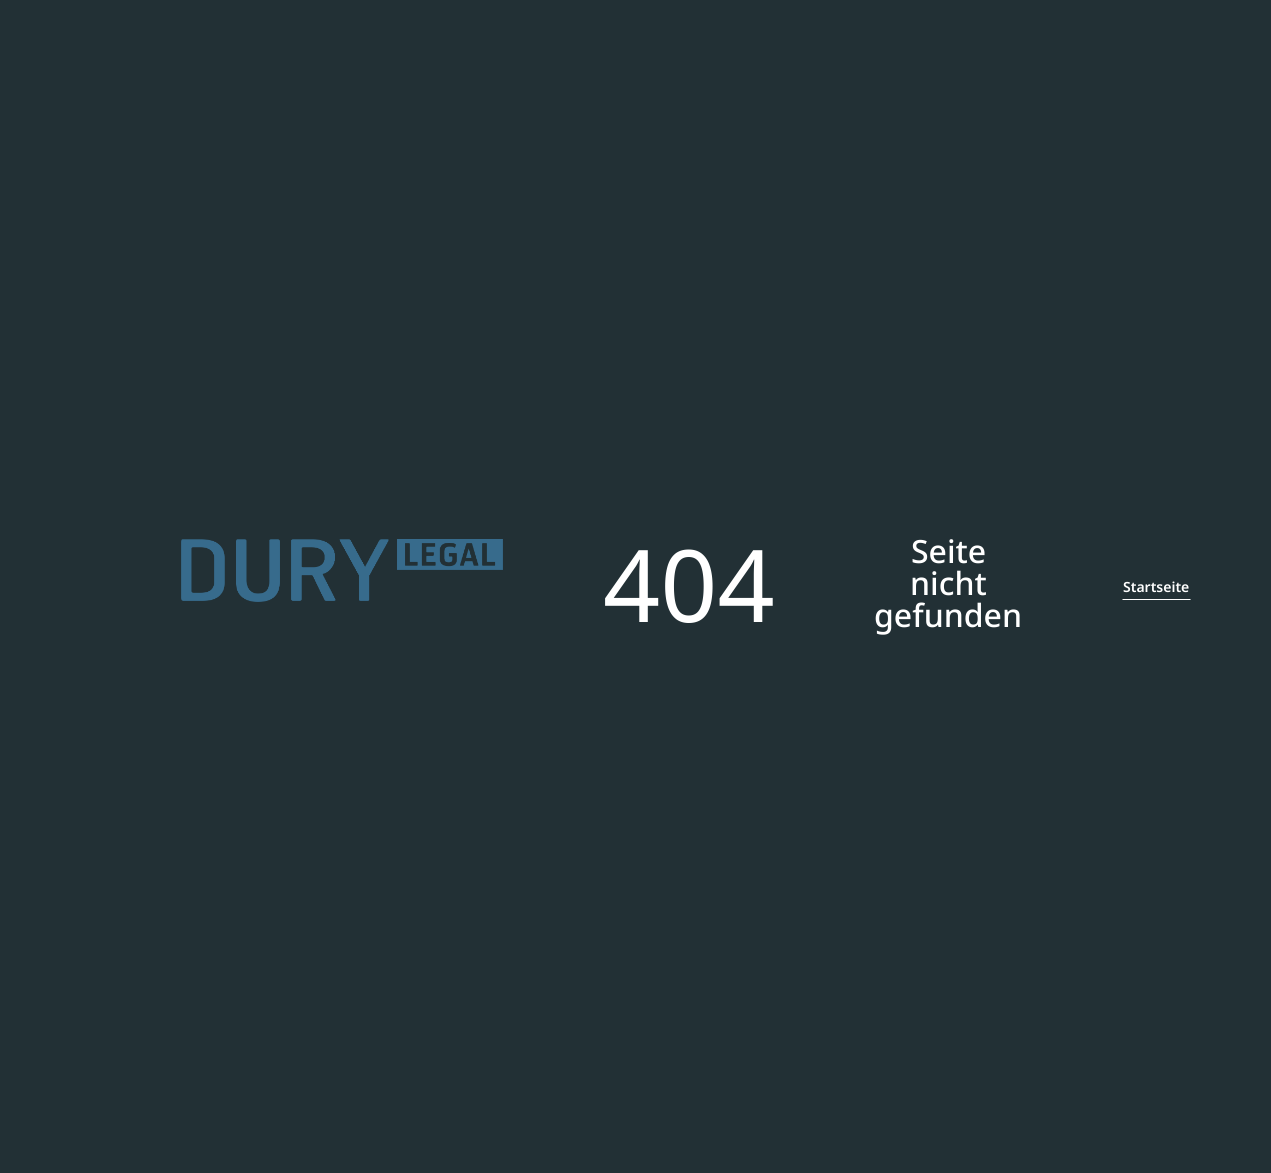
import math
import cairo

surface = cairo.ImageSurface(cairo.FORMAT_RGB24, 1271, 1173)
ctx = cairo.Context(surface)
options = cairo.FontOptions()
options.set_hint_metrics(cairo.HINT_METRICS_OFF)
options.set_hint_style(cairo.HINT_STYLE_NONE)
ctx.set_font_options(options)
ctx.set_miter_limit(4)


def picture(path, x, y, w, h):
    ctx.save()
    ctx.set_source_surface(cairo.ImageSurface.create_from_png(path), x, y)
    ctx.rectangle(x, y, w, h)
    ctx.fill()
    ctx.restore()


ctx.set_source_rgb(0.133, 0.188, 0.208)
ctx.paint()
picture("img1.png", 181, 539, 322, 63)
ctx.select_font_face("Noto Sans")
ctx.set_font_size(100)
ctx.set_source_rgb(1, 1, 1)
ctx.move_to(603, 622)
ctx.show_text("404")
ctx.select_font_face("Noto Sans Medium")
ctx.set_font_size(32)
ctx.move_to(911, 563)
ctx.show_text("Seite")
ctx.move_to(910, 595)
ctx.show_text("nicht")
ctx.move_to(874, 627)
ctx.show_text("gefunden")
ctx.new_path()
ctx.move_to(1191, 600)
ctx.line_to(1122, 600)
ctx.line_to(1123, 599)
ctx.line_to(1190, 599)
ctx.close_path()
ctx.fill()
ctx.select_font_face("Noto Sans SemiBold")
ctx.set_font_size(14)
ctx.move_to(1123, 592)
ctx.show_text("Startseite")
surface.write_to_png("page.png")
